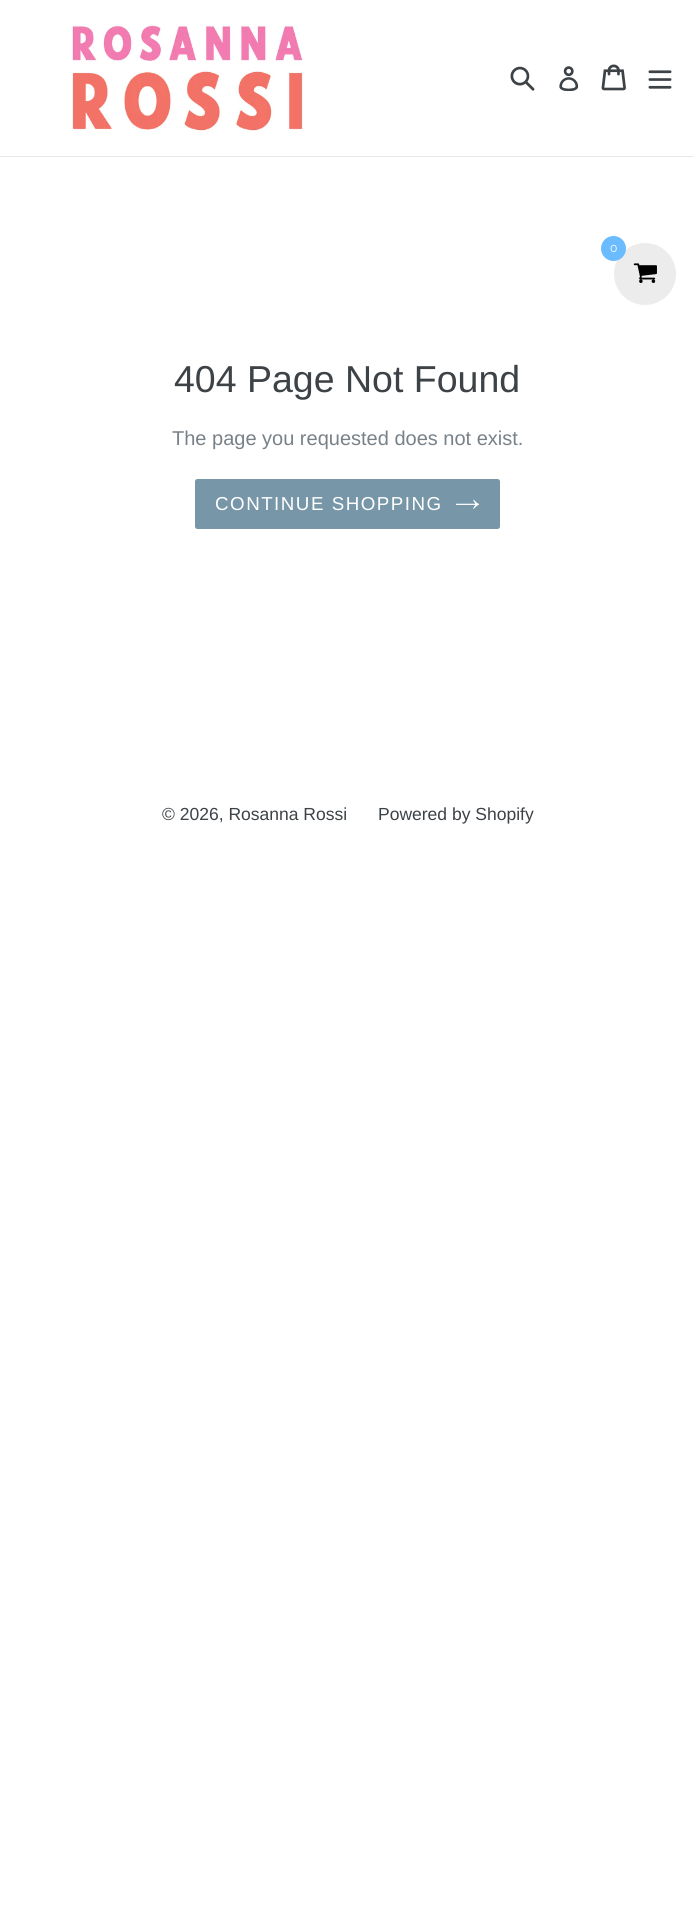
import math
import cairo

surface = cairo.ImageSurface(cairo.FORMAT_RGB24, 694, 1913)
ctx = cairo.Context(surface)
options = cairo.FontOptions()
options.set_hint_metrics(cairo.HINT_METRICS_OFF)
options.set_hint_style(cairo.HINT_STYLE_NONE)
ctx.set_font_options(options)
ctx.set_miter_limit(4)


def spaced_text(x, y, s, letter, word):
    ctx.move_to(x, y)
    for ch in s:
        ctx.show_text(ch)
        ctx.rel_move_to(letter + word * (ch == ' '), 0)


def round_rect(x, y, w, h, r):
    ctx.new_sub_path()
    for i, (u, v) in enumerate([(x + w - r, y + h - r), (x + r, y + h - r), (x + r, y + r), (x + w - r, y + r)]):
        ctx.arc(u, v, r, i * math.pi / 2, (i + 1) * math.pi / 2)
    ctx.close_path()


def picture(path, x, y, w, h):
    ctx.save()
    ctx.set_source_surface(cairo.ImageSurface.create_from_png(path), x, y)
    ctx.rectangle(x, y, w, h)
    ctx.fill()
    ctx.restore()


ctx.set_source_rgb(1, 1, 1)
ctx.paint()
ctx.set_source_rgb(0.91, 0.914, 0.922)
ctx.rectangle(0, 156, 694, 1)
ctx.fill()
picture("img1.png", 70, 24, 233, 109)
picture("img2.png", 510, 66, 25, 25)
picture("img3.png", 559, 66, 20, 25)
picture("img4.png", 601, 64, 25, 27)
picture("img5.png", 648, 70, 24, 19)
ctx.set_source_rgb(0.922, 0.922, 0.922)
ctx.arc(645, 274, 31, 0, 2 * math.pi)
ctx.fill()
ctx.set_source_rgb(0.42, 0.733, 1)
ctx.arc(613.5, 248.5, 12.5, 0, 2 * math.pi)
ctx.fill()
ctx.select_font_face("Raleway Thin")
ctx.set_font_size(12)
ctx.set_source_rgb(1, 1, 1)
ctx.move_to(610, 252)
ctx.show_text("0")
picture("img6.png", 633, 263, 24, 20)
ctx.select_font_face("Liberation Sans")
ctx.set_font_size(37.5)
ctx.set_source_rgb(0.239, 0.259, 0.275)
ctx.move_to(174, 392)
ctx.show_text("404 Page Not Found")
ctx.set_font_size(20)
ctx.set_source_rgb(0.471, 0.506, 0.533)
ctx.move_to(172, 445)
ctx.show_text("The page you requested does not exist.")
ctx.set_source_rgb(0.467, 0.588, 0.659)
round_rect(195, 479, 305, 50, 2.5)
ctx.fill()
ctx.set_font_size(18.75)
ctx.set_source_rgb(1, 1, 1)
spaced_text(215, 510, "CONTINUE SHOPPING", 1.5, 0)
picture("img7.png", 455, 499, 24, 10)
ctx.set_font_size(17.5)
ctx.set_source_rgb(0.239, 0.259, 0.275)
ctx.move_to(162, 820)
ctx.show_text("© 2026, Rosanna Rossi")
ctx.move_to(378, 820)
ctx.show_text("Powered by Shopify")
surface.write_to_png("page.png")
